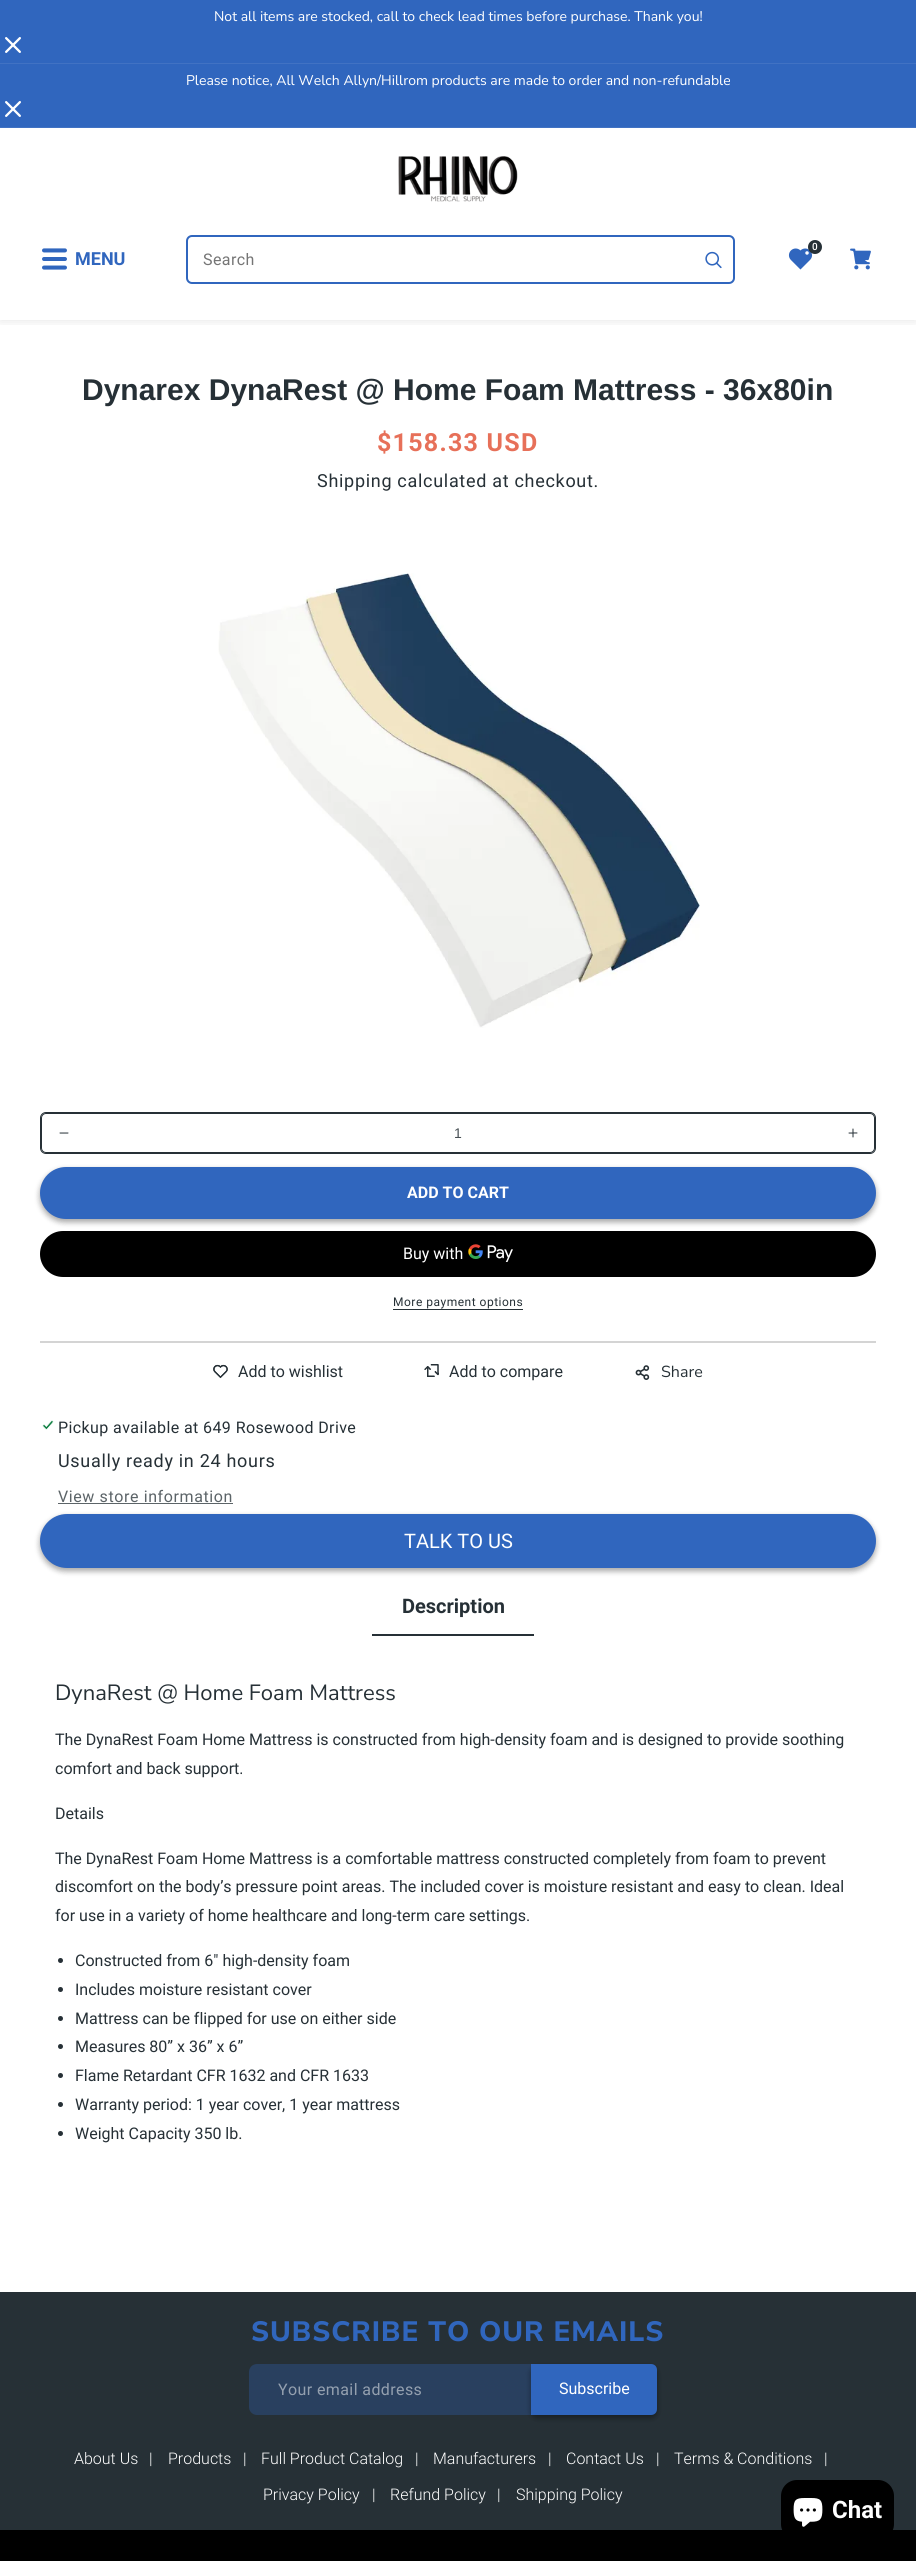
import math
import cairo

surface = cairo.ImageSurface(cairo.FORMAT_RGB24, 916, 2561)
ctx = cairo.Context(surface)
options = cairo.FontOptions()
options.set_hint_metrics(cairo.HINT_METRICS_OFF)
options.set_hint_style(cairo.HINT_STYLE_NONE)
ctx.set_font_options(options)
ctx.set_miter_limit(4)


def spaced_text(x, y, s, letter, word):
    ctx.move_to(x, y)
    for ch in s:
        ctx.show_text(ch)
        ctx.rel_move_to(letter + word * (ch == ' '), 0)


def round_rect(x, y, w, h, r):
    ctx.new_sub_path()
    for i, (u, v) in enumerate([(x + w - r, y + h - r), (x + r, y + h - r), (x + r, y + r), (x + w - r, y + r)]):
        ctx.arc(u, v, r, i * math.pi / 2, (i + 1) * math.pi / 2)
    ctx.close_path()


def shadow(x, y, w, h, r, blur, alpha):
    ctx.push_group_with_content(cairo.CONTENT_ALPHA)
    ctx.set_operator(cairo.OPERATOR_SOURCE)
    for i in range(15, -16, -2):
        e = blur * i / 6
        if min(w, h) + 2 * e > 0:
            ctx.set_source_rgba(0, 0, 0, alpha * math.erfc((i - 1) / 8.5) / 2)
            round_rect(x - e, y - e, w + 2 * e, h + 2 * e, max(0, min(r + e + blur * .6, min(w, h) / 2 + e)))
            ctx.fill()
    ctx.mask(ctx.pop_group())


def picture(path, x, y, w, h):
    ctx.save()
    ctx.set_source_surface(cairo.ImageSurface.create_from_png(path), x, y)
    ctx.rectangle(x, y, w, h)
    ctx.fill()
    ctx.restore()


ctx.set_source_rgb(1, 1, 1)
ctx.paint()
ctx.set_source_rgb(0.188, 0.4, 0.745)
ctx.rectangle(0, 0, 916, 63)
ctx.fill()
ctx.set_source_rgb(0.255, 0.447, 0.765)
ctx.rectangle(0, 63, 916, 1)
ctx.fill()
ctx.select_font_face("Nunito Sans")
ctx.set_font_size(14)
ctx.set_source_rgb(1, 1, 1)
ctx.move_to(214, 21)
ctx.show_text("Not all items are stocked, call to check lead times before purchase. Thank you!")
picture("img1.png", 5, 37, 16, 16)
ctx.save()
ctx.rectangle(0, 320, 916, 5)
ctx.clip()
ctx.set_source_rgb(0, 0, 0)
shadow(0, 128, 916, 192, 0, 6, 0.11)
ctx.restore()
ctx.set_source_rgb(0.188, 0.4, 0.745)
ctx.rectangle(0, 64, 916, 63)
ctx.fill()
ctx.set_source_rgb(0.255, 0.447, 0.765)
ctx.rectangle(0, 127, 916, 1)
ctx.fill()
ctx.set_source_rgb(1, 1, 1)
ctx.move_to(186, 85)
ctx.show_text("Please notice, All Welch Allyn/Hillrom products are made to order and non-refundable")
picture("img1.png", 5, 101, 16, 16)
picture("img2.png", 398, 156, 120, 46)
picture("img3.png", 42, 248, 25, 22)
ctx.select_font_face("Roboto", cairo.FONT_SLANT_NORMAL, cairo.FONT_WEIGHT_BOLD)
ctx.set_font_size(18)
ctx.set_source_rgb(0.188, 0.4, 0.745)
ctx.move_to(75, 265)
ctx.show_text("MENU")
picture("img4.png", 788, 248, 25, 22)
ctx.set_source_rgb(0.149, 0.188, 0.212)
ctx.arc(815, 247, 7, 0, 2 * math.pi)
ctx.fill()
ctx.select_font_face("Roboto Medium")
ctx.set_font_size(10)
ctx.set_source_rgb(1, 1, 1)
ctx.move_to(812, 250)
ctx.show_text("0")
round_rect(187, 236, 547, 47, 5)
ctx.set_source_rgb(0.188, 0.4, 0.745)
ctx.stroke()
ctx.select_font_face("Roboto")
ctx.set_font_size(16)
ctx.set_source_rgb(0.459, 0.459, 0.459)
spaced_text(203, 265, "Search", 0.4, 0)
picture("img5.png", 705, 251, 17, 18)
picture("img6.png", 850, 248, 21, 22)
ctx.select_font_face("Liberation Sans", cairo.FONT_SLANT_NORMAL, cairo.FONT_WEIGHT_BOLD)
ctx.set_font_size(30)
ctx.set_source_rgb(0.149, 0.188, 0.212)
ctx.move_to(82, 400)
ctx.show_text("Dynarex DynaRest @ Home Foam Mattress - 36x80in")
ctx.select_font_face("Roboto", cairo.FONT_SLANT_NORMAL, cairo.FONT_WEIGHT_BOLD)
ctx.set_font_size(25)
ctx.set_source_rgb(0.906, 0.439, 0.349)
spaced_text(377, 451, "$158.33 USD", 1.25, 0)
ctx.select_font_face("Roboto")
ctx.set_font_size(18)
ctx.set_source_rgb(0.149, 0.188, 0.212)
spaced_text(317, 487, "Shipping calculated at checkout.", 0.7, 0)
picture("img7.png", 218, 573, 482, 455)
ctx.set_source_rgb(0.831, 0.831, 0.831)
ctx.rectangle(40, 1341, 836, 2)
ctx.fill()
picture("img8.png", 59, 1132, 10, 2)
picture("img9.png", 848, 1128, 10, 10)
round_rect(40.5, 1112.5, 835, 41, 5.5)
ctx.set_source_rgb(0.149, 0.188, 0.212)
ctx.set_line_width(1)
ctx.stroke()
round_rect(41.5, 1113.5, 833, 39, 4.5)
ctx.stroke()
ctx.select_font_face("Liberation Sans")
ctx.set_font_size(14)
ctx.set_source_rgb(0.278, 0.31, 0.329)
ctx.move_to(454, 1138)
ctx.show_text("1")
ctx.set_source_rgb(0, 0, 0)
round_rect(40, 1231, 836, 46, 23)
ctx.fill()
ctx.set_source_rgb(0, 0, 0)
shadow(40, 1170, 836, 52, 26, 3, 0.23)
shadow(40, 1170, 836, 52, 26, 3, 0.16)
ctx.set_source_rgb(0.188, 0.4, 0.745)
round_rect(41, 1168, 834, 50, 25)
ctx.fill_preserve()
ctx.set_line_width(2)
ctx.stroke()
ctx.select_font_face("Roboto", cairo.FONT_SLANT_NORMAL, cairo.FONT_WEIGHT_BOLD)
ctx.set_font_size(16)
ctx.set_source_rgb(1, 1, 1)
ctx.move_to(407, 1198)
ctx.show_text("ADD TO CART")
ctx.select_font_face("Roboto")
ctx.move_to(403, 1259)
ctx.show_text("Buy with")
picture("img10.png", 468, 1244, 45, 18)
ctx.set_font_size(12)
ctx.set_source_rgb(0.149, 0.188, 0.212)
spaced_text(393, 1306, "More payment options", 0.5, 0)
ctx.rectangle(393, 1309, 130, 1)
ctx.fill()
picture("img11.png", 213, 1364, 15, 15)
ctx.set_font_size(16)
ctx.move_to(238, 1377)
ctx.show_text("Add to wishlist")
picture("img12.png", 424, 1364, 15, 13)
ctx.move_to(449, 1377)
ctx.show_text("Add to compare")
picture("img13.png", 635, 1365, 15, 15)
ctx.select_font_face("Nunito Sans")
ctx.move_to(661, 1377)
ctx.show_text("Share")
picture("img14.png", 42, 1420, 12, 10)
ctx.select_font_face("Roboto")
spaced_text(58, 1433, "Pickup available at 649 Rosewood Drive", 0.4, 0)
ctx.set_font_size(18)
spaced_text(58, 1467, "Usually ready in 24 hours", 0.7, 0)
ctx.set_font_size(16)
ctx.set_source_rgb(0.361, 0.392, 0.408)
spaced_text(58, 1502, "View store information", 0.6, 0)
ctx.rectangle(58, 1503, 175, 1)
ctx.fill()
ctx.set_source_rgb(0, 0, 0)
shadow(40, 1517, 836, 54, 27, 3, 0.23)
shadow(40, 1517, 836, 54, 27, 3, 0.16)
ctx.set_source_rgb(0.188, 0.4, 0.745)
round_rect(40, 1514, 836, 54, 27)
ctx.fill()
ctx.set_font_size(20)
ctx.set_source_rgb(1, 1, 1)
ctx.move_to(404, 1548)
ctx.show_text("TALK TO US")
ctx.set_source_rgb(0.149, 0.188, 0.212)
ctx.rectangle(372, 1634, 162, 2)
ctx.fill()
ctx.select_font_face("Roboto", cairo.FONT_SLANT_NORMAL, cairo.FONT_WEIGHT_BOLD)
ctx.move_to(402, 1613)
ctx.show_text("Description")
ctx.select_font_face("Nunito Sans")
ctx.set_font_size(22)
ctx.move_to(55, 1700)
ctx.show_text("DynaRest @ Home Foam Mattress")
ctx.select_font_face("Roboto")
ctx.set_font_size(16)
ctx.move_to(55, 1745)
ctx.show_text("The DynaRest Foam Home Mattress is constructed from high-density foam and is designed to provide soothing")
ctx.move_to(55, 1774)
ctx.show_text("comfort and back support.")
ctx.move_to(55, 1819)
ctx.show_text("Details")
ctx.move_to(55, 1864)
ctx.show_text("The DynaRest Foam Home Mattress is a comfortable mattress constructed completely from foam to prevent")
ctx.move_to(55, 1892)
ctx.show_text("discomfort on the body’s pressure point areas. The included cover is moisture resistant and easy to clean. Ideal")
ctx.move_to(55, 1921)
ctx.show_text("for use in a variety of home healthcare and long-term care settings.")
ctx.new_path()
ctx.arc(60.5, 1960.5, 2.5, 0, 2 * math.pi)
ctx.fill()
ctx.move_to(75, 1966)
ctx.show_text("Constructed from 6\" high-density foam")
ctx.new_path()
ctx.arc(60.5, 1989.5, 2.5, 0, 2 * math.pi)
ctx.fill()
ctx.move_to(75, 1995)
ctx.show_text("Includes moisture resistant cover")
ctx.new_path()
ctx.arc(60.5, 2018.5, 2.5, 0, 2 * math.pi)
ctx.fill()
ctx.move_to(75, 2024)
ctx.show_text("Mattress can be flipped for use on either side")
ctx.new_path()
ctx.arc(60.5, 2046.5, 2.5, 0, 2 * math.pi)
ctx.fill()
ctx.move_to(75, 2052)
ctx.show_text("Measures 80” x 36” x 6”")
ctx.new_path()
ctx.arc(60.5, 2075.5, 2.5, 0, 2 * math.pi)
ctx.fill()
ctx.move_to(75, 2081)
ctx.show_text("Flame Retardant CFR 1632 and CFR 1633")
ctx.new_path()
ctx.arc(60.5, 2104.5, 2.5, 0, 2 * math.pi)
ctx.fill()
ctx.move_to(75, 2110)
ctx.show_text("Warranty period: 1 year cover, 1 year mattress")
ctx.new_path()
ctx.arc(60.5, 2133.5, 2.5, 0, 2 * math.pi)
ctx.fill()
ctx.move_to(75, 2139)
ctx.show_text("Weight Capacity 350 lb.")
ctx.rectangle(0, 2292, 916, 238)
ctx.fill()
ctx.select_font_face("Nunito Sans ExtraBold")
ctx.set_font_size(28)
ctx.set_source_rgb(0.188, 0.4, 0.745)
spaced_text(251, 2341, "SUBSCRIBE TO OUR EMAILS", 1, 0)
ctx.set_source_rgb(0.161, 0.251, 0.373)
round_rect(249, 2364, 292, 51, 8)
ctx.fill()
ctx.select_font_face("Roboto")
ctx.set_font_size(16)
ctx.set_source_rgb(0.58, 0.627, 0.686)
spaced_text(278, 2395, "Your email address", 0.4, 0)
ctx.set_source_rgb(0, 0, 0)
shadow(531, 2367, 126, 51, 6, 3, 0.23)
shadow(531, 2367, 126, 51, 6, 3, 0.16)
ctx.set_source_rgb(0.188, 0.4, 0.745)
ctx.new_path()
ctx.move_to(531, 2364)
ctx.line_to(651, 2364)
ctx.curve_to(654.5, 2364, 657, 2366.5, 657, 2370)
ctx.line_to(657, 2409)
ctx.curve_to(657, 2412.5, 654.5, 2415, 651, 2415)
ctx.line_to(531, 2415)
ctx.close_path()
ctx.fill()
ctx.set_source_rgb(1, 1, 1)
ctx.move_to(559, 2394)
ctx.show_text("Subscribe")
ctx.select_font_face("Roboto Light")
ctx.move_to(74, 2464)
ctx.show_text("About Us")
ctx.move_to(149, 2464)
ctx.show_text("|")
ctx.move_to(168, 2464)
ctx.show_text("Products")
ctx.move_to(243, 2464)
ctx.show_text("|")
ctx.move_to(261, 2464)
ctx.show_text("Full Product Catalog")
ctx.move_to(415, 2464)
ctx.show_text("|")
ctx.move_to(433, 2464)
ctx.show_text("Manufacturers")
ctx.move_to(548, 2464)
ctx.show_text("|")
ctx.move_to(566, 2464)
ctx.show_text("Contact Us")
ctx.move_to(656, 2464)
ctx.show_text("|")
ctx.move_to(674, 2464)
ctx.show_text("Terms & Conditions")
ctx.move_to(824, 2464)
ctx.show_text("|")
ctx.move_to(263, 2500)
ctx.show_text("Privacy Policy")
ctx.move_to(372, 2500)
ctx.show_text("|")
ctx.move_to(390, 2500)
ctx.show_text("Refund Policy")
ctx.move_to(497, 2500)
ctx.show_text("|")
ctx.move_to(516, 2500)
ctx.show_text("Shipping Policy")
ctx.set_source_rgb(0, 0, 0)
ctx.rectangle(0, 2530, 916, 31)
ctx.fill()
round_rect(781, 2480, 113, 60, 16)
ctx.fill()
picture("img15.png", 793, 2498, 30, 29)
ctx.select_font_face("Roboto", cairo.FONT_SLANT_NORMAL, cairo.FONT_WEIGHT_BOLD)
ctx.set_font_size(24)
ctx.set_source_rgb(1, 1, 1)
ctx.move_to(832, 2518)
ctx.show_text("Chat")
surface.write_to_png("page.png")
